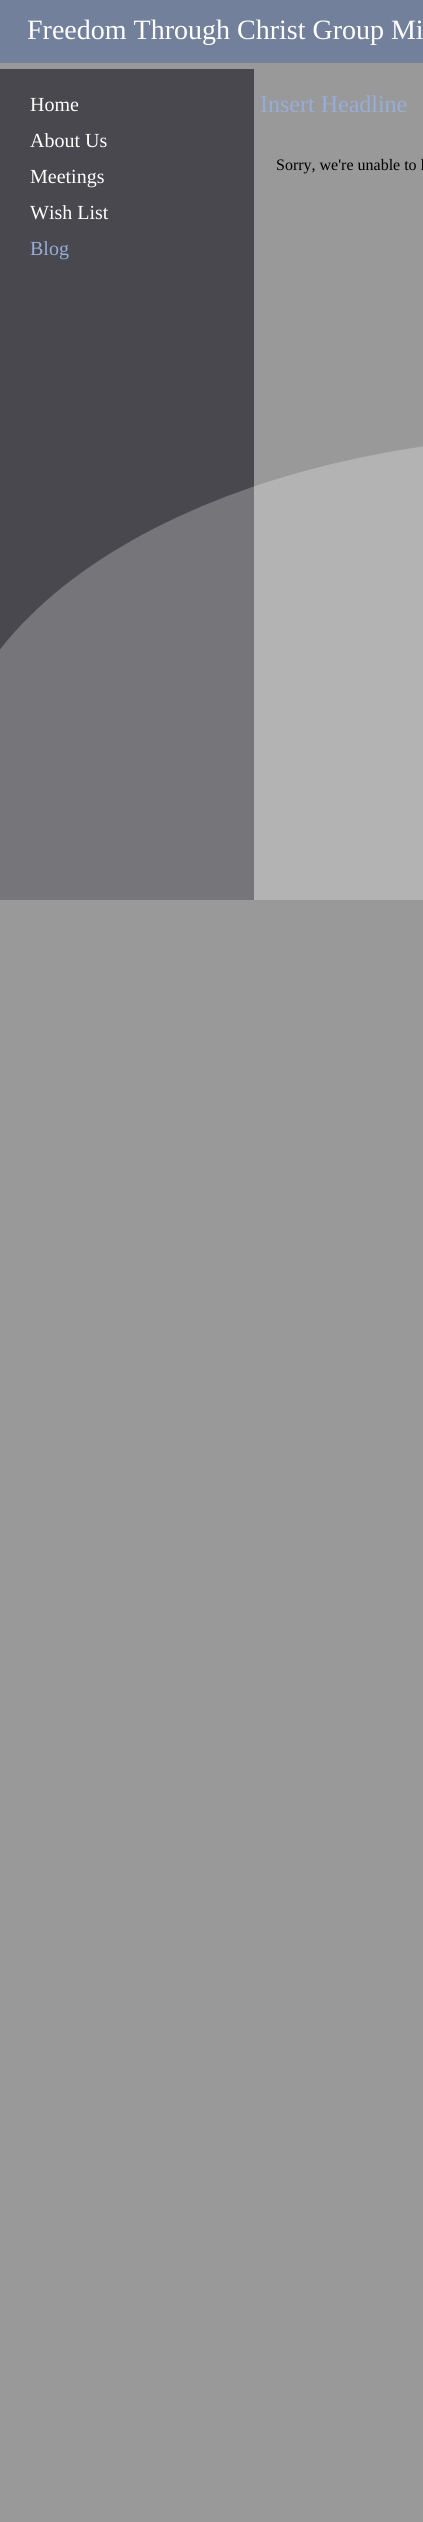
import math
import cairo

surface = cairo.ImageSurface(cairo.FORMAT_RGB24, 423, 2522)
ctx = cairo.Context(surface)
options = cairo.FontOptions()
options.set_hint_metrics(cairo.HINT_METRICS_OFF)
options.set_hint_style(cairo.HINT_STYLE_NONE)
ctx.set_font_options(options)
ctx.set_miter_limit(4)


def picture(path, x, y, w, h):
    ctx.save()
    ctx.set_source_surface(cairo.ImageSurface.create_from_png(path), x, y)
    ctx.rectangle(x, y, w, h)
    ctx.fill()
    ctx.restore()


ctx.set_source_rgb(0.6, 0.6, 0.6)
ctx.paint()
ctx.set_source_rgb(0.447, 0.502, 0.608)
ctx.rectangle(0, 0, 423, 63)
ctx.fill()
ctx.select_font_face("Liberation Serif")
ctx.set_font_size(28)
ctx.set_source_rgb(1, 1, 1)
ctx.move_to(27, 39)
ctx.show_text("Freedom Through Christ Group Mi")
ctx.set_source_rgb(0.282, 0.282, 0.306)
ctx.rectangle(0, 69, 254, 831)
ctx.fill()
ctx.set_font_size(24)
ctx.set_source_rgb(0.592, 0.678, 0.843)
ctx.move_to(260, 112)
ctx.show_text("Insert Headline")
ctx.set_font_size(20)
ctx.set_source_rgb(1, 1, 1)
ctx.move_to(30, 111)
ctx.show_text("Home")
ctx.move_to(30, 147)
ctx.show_text("About Us")
ctx.move_to(30, 183)
ctx.show_text("Meetings")
ctx.move_to(30, 219)
ctx.show_text("Wish List")
ctx.set_source_rgb(0.592, 0.678, 0.843)
ctx.move_to(30, 255)
ctx.show_text("Blog")
ctx.set_font_size(16)
ctx.set_source_rgb(0, 0, 0)
ctx.move_to(276, 170)
ctx.show_text("Sorry, we're unable to l")
picture("img1.png", 0, 446, 423, 454)
surface.write_to_png("page.png")
